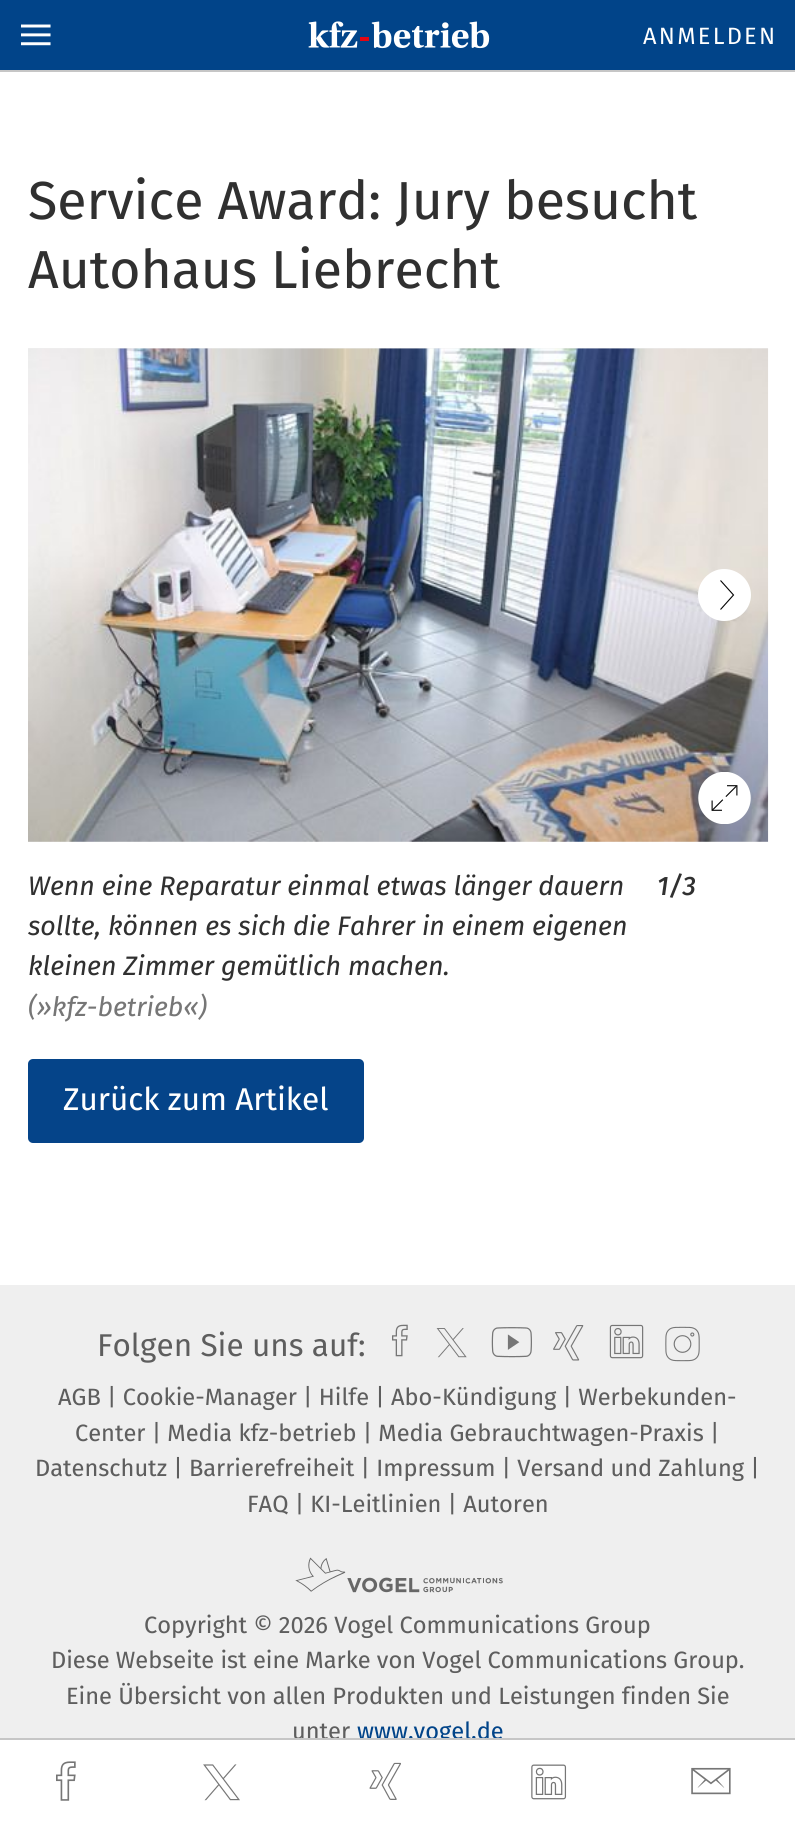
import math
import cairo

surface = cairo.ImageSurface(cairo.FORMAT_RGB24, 795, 1824)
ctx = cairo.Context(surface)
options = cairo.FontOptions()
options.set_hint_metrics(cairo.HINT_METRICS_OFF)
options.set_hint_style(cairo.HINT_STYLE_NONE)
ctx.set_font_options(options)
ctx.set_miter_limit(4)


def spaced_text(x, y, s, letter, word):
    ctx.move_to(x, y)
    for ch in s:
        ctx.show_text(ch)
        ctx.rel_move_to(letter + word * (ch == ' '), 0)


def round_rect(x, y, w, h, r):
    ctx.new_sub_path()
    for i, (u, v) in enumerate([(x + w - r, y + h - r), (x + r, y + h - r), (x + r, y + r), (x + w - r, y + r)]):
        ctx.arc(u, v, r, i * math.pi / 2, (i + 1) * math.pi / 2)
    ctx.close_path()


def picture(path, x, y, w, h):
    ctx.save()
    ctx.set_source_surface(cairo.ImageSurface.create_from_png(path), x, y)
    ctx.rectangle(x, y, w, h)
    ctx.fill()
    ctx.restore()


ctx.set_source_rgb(1, 1, 1)
ctx.paint()
ctx.set_source_rgb(0.776, 0.776, 0.776)
ctx.rectangle(0, 70, 795, 2)
ctx.fill()
ctx.set_source_rgb(0.004, 0.267, 0.537)
ctx.rectangle(0, 0, 795, 70)
ctx.fill()
picture("img1.png", 21, 24, 30, 22)
picture("img2.png", 308, 21, 182, 28)
ctx.select_font_face("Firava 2")
ctx.set_font_size(23.6)
ctx.set_source_rgb(1, 1, 1)
spaced_text(643, 44, "ANMELDEN", 2.25, 0)
ctx.select_font_face("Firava")
ctx.set_font_size(53.5)
ctx.set_source_rgb(0.188, 0.188, 0.188)
ctx.move_to(28, 219)
ctx.show_text("Service Award: Jury besucht")
ctx.move_to(28, 288)
ctx.show_text("Autohaus Liebrecht")
ctx.set_source_rgb(0.937, 0.937, 0.937)
ctx.rectangle(28, 348, 740, 494)
ctx.fill()
picture("img3.png", 28, 348, 741, 494)
ctx.set_source_rgb(1, 1, 1)
ctx.new_path()
ctx.move_to(724, 569)
ctx.curve_to(710, 569, 698, 581, 698, 595)
ctx.curve_to(698, 609, 710, 621, 724, 621)
ctx.curve_to(739, 621, 751, 609, 751, 595)
ctx.curve_to(751, 581, 739, 569, 724, 569)
ctx.fill()
ctx.new_path()
ctx.move_to(720.5, 609.5)
ctx.line_to(733.5, 595)
ctx.line_to(720.5, 580.5)
ctx.set_source_rgb(0, 0, 0)
ctx.set_line_width(1.1)
ctx.stroke()
picture("img4.png", 698, 772, 53, 52)
ctx.select_font_face("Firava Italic", cairo.FONT_SLANT_ITALIC)
ctx.set_font_size(26.75)
ctx.set_source_rgb(0.188, 0.188, 0.188)
ctx.move_to(28, 895)
ctx.show_text("Wenn eine Reparatur einmal etwas länger dauern")
ctx.move_to(28, 935)
ctx.show_text("sollte, können es sich die Fahrer in einem eigenen")
ctx.move_to(28, 975)
ctx.show_text("kleinen Zimmer gemütlich machen.")
ctx.set_source_rgb(0.463, 0.463, 0.463)
ctx.move_to(28, 1016)
ctx.show_text("(»kfz-betrieb«)")
ctx.select_font_face("Firava Italic Medium", cairo.FONT_SLANT_ITALIC)
ctx.set_source_rgb(0.188, 0.188, 0.188)
ctx.move_to(657, 895)
ctx.show_text("1/3")
ctx.set_source_rgb(0.02, 0.267, 0.537)
round_rect(28, 1059, 336, 84, 5)
ctx.fill()
ctx.select_font_face("Firava")
ctx.set_font_size(31.5)
ctx.set_source_rgb(1, 1, 1)
ctx.move_to(63, 1110)
ctx.show_text("Zurück zum Artikel")
ctx.set_source_rgb(0.937, 0.937, 0.937)
ctx.rectangle(0, 1285, 795, 453)
ctx.fill()
ctx.set_font_size(23.6)
ctx.set_source_rgb(0.004, 0.267, 0.537)
ctx.move_to(357, 1739)
ctx.show_text("www.vogel.de")
ctx.set_source_rgb(1, 1, 1)
ctx.rectangle(439, 1740, 12, 5)
ctx.fill()
ctx.set_source_rgb(0.369, 0.369, 0.369)
ctx.move_to(292, 1739)
ctx.show_text("unter")
ctx.set_source_rgb(0.776, 0.776, 0.776)
ctx.rectangle(0, 1738, 795, 2)
ctx.fill()
picture("img5.png", 56, 1761, 20, 40)
picture("img6.png", 203, 1764, 37, 37)
picture("img7.png", 369, 1762, 32, 38)
picture("img8.png", 531, 1764, 36, 36)
picture("img9.png", 691, 1767, 40, 28)
ctx.select_font_face("Firava 2")
ctx.set_font_size(31.5)
ctx.set_source_rgb(0.369, 0.369, 0.369)
ctx.move_to(97, 1356)
ctx.show_text("Folgen Sie uns auf:")
picture("img10.png", 392, 1324, 16, 33)
picture("img11.png", 436, 1328, 31, 30)
picture("img12.png", 491, 1327, 41, 31)
picture("img13.png", 553, 1325, 31, 36)
picture("img14.png", 609, 1324, 35, 35)
picture("img15.png", 665, 1326, 35, 36)
ctx.select_font_face("Firava")
ctx.set_font_size(23.6)
ctx.move_to(58, 1405)
ctx.show_text("AGB | Cookie-Manager | Hilfe | Abo-Kündigung | Werbekunden-")
ctx.move_to(75, 1441)
ctx.show_text("Center | Media kfz-betrieb | Media Gebrauchtwagen-Praxis |")
ctx.move_to(35, 1476)
ctx.show_text("Datenschutz | Barrierefreiheit | Impressum | Versand und Zahlung |")
ctx.move_to(247, 1512)
ctx.show_text("FAQ | KI-Leitlinien | Autoren")
picture("img16.png", 295, 1557, 208, 36)
ctx.move_to(144, 1633)
ctx.show_text("Copyright © 2026 Vogel Communications Group")
ctx.move_to(51, 1668)
ctx.show_text("Diese Webseite ist eine Marke von Vogel Communications Group.")
ctx.move_to(66, 1704)
ctx.show_text("Eine Übersicht von allen Produkten und Leistungen finden Sie")
surface.write_to_png("page.png")
